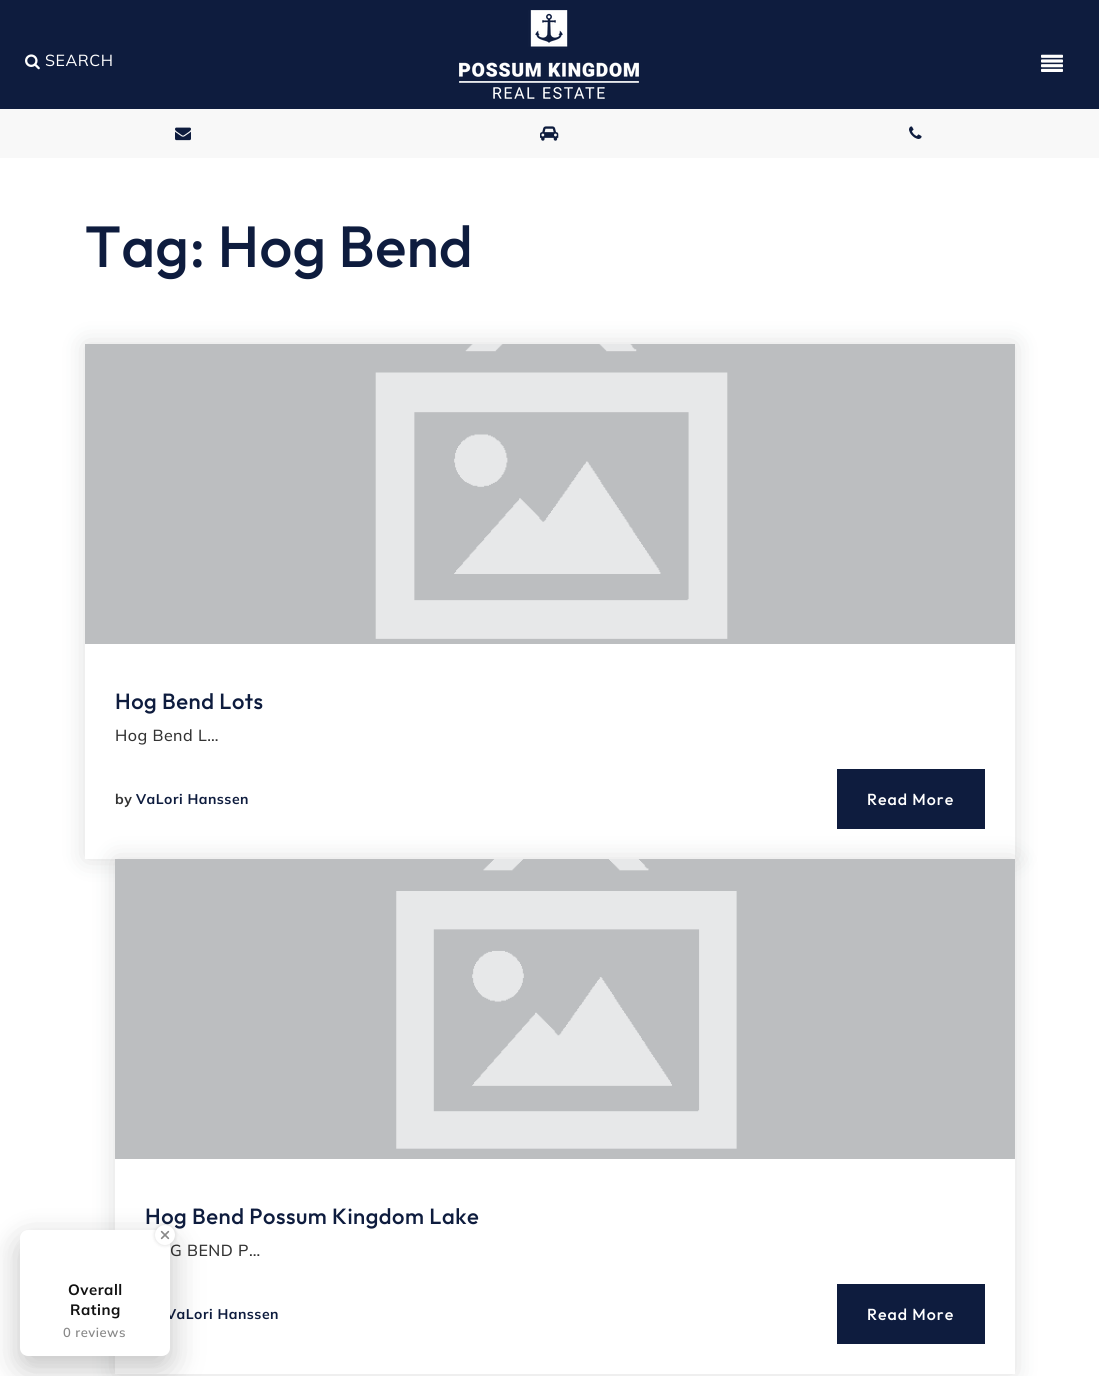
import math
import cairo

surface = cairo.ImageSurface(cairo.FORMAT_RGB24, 1099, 1376)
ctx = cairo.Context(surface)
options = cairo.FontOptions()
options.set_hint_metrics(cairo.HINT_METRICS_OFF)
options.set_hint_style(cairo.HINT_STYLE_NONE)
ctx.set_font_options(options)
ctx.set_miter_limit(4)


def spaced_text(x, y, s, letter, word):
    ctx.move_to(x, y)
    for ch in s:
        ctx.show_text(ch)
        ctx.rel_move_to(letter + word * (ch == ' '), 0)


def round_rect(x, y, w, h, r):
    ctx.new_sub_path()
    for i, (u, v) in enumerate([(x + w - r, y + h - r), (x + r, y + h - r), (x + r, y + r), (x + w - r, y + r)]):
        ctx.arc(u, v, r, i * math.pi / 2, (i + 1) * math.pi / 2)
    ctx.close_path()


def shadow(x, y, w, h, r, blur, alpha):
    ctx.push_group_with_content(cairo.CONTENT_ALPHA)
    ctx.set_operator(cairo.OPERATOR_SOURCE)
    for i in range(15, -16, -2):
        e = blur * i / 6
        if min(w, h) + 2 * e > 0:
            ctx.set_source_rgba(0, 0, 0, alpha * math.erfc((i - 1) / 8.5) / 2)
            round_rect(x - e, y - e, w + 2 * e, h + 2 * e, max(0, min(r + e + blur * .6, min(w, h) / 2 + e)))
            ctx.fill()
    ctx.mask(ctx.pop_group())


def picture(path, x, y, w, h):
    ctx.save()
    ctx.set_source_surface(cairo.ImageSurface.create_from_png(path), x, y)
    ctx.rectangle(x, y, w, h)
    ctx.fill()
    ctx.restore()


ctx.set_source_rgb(1, 1, 1)
ctx.paint()
ctx.set_source_rgb(0.055, 0.11, 0.243)
ctx.rectangle(0, 0, 1099, 109)
ctx.fill()
picture("img1.png", 25, 54, 15, 16)
ctx.select_font_face("Mulish")
ctx.set_font_size(16)
ctx.set_source_rgb(1, 1, 1)
spaced_text(45, 66, "SEARCH", 0.5, 0)
picture("img2.png", 459, 10, 180, 89)
picture("img3.png", 1041, 54, 22, 18)
ctx.set_source_rgb(0.969, 0.969, 0.969)
ctx.rectangle(0, 109, 1099, 49)
ctx.fill()
picture("img4.png", 175, 127, 16, 14)
picture("img5.png", 540, 126, 19, 15)
picture("img6.png", 909, 126, 13, 13)
ctx.select_font_face("Outfit Medium")
ctx.set_font_size(58)
ctx.set_source_rgb(0.055, 0.11, 0.243)
spaced_text(85, 267, "Tag: Hog Bend", 0.5, 0)
ctx.save()
ctx.set_fill_rule(cairo.FILL_RULE_EVEN_ODD)
ctx.new_path()
ctx.move_to(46, 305)
ctx.line_to(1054, 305)
ctx.line_to(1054, 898)
ctx.line_to(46, 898)
ctx.close_path()
ctx.move_to(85, 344)
ctx.line_to(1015, 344)
ctx.line_to(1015, 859)
ctx.line_to(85, 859)
ctx.close_path()
ctx.clip()
ctx.set_source_rgb(0.161, 0.169, 0.173)
shadow(85, 344, 930, 515, 0, 12.5, 0.15)
ctx.restore()
picture("img7.png", 85, 344, 930, 300)
ctx.set_font_size(22)
spaced_text(115, 709, "Hog Bend Lots", 0.5, 0)
ctx.select_font_face("Mulish Medium")
ctx.set_font_size(16)
ctx.set_source_rgb(0.2, 0.2, 0.2)
spaced_text(115, 741, "Hog Bend L…", 0.5, 0)
ctx.select_font_face("Mulish", cairo.FONT_SLANT_NORMAL, cairo.FONT_WEIGHT_BOLD)
ctx.set_font_size(14)
spaced_text(115, 804, "by", 0.5, 0)
ctx.set_source_rgb(0.055, 0.11, 0.243)
spaced_text(136, 804, "VaLori Hanssen", 0.5, 0)
ctx.set_source_rgb(0.161, 0.169, 0.173)
shadow(115, 859, 900, 515, 0, 12.5, 0.15)
ctx.set_source_rgb(0.055, 0.11, 0.243)
ctx.rectangle(837, 769, 148, 60)
ctx.fill()
ctx.select_font_face("Outfit Medium")
ctx.set_font_size(16)
ctx.set_source_rgb(1, 1, 1)
spaced_text(867, 805, "Read More", 1, 0)
ctx.rectangle(115, 1159, 900, 215)
ctx.fill()
picture("img8.png", 115, 859, 900, 300)
ctx.set_font_size(22)
ctx.set_source_rgb(0.055, 0.11, 0.243)
spaced_text(145, 1224, "Hog Bend Possum Kingdom Lake", 0.5, 0)
ctx.select_font_face("Mulish Medium")
ctx.set_font_size(16)
ctx.set_source_rgb(0.2, 0.2, 0.2)
spaced_text(170, 1256, "G BEND P…", 0.5, 0)
ctx.select_font_face("Mulish", cairo.FONT_SLANT_NORMAL, cairo.FONT_WEIGHT_BOLD)
ctx.set_font_size(14)
ctx.set_source_rgb(0.055, 0.11, 0.243)
spaced_text(166, 1319, "VaLori Hanssen", 0.5, 0)
ctx.rectangle(837, 1284, 148, 60)
ctx.fill()
ctx.select_font_face("Outfit Medium")
ctx.set_font_size(16)
ctx.set_source_rgb(1, 1, 1)
spaced_text(867, 1320, "Read More", 1, 0)
ctx.set_source_rgb(0, 0, 0)
shadow(20, 1240, 150, 126, 8, 15, 0.15)
shadow(20, 1245, 150, 126, 8, 20, 0.1)
ctx.set_source_rgb(1, 1, 1)
round_rect(20, 1230, 150, 126, 8)
ctx.fill()
ctx.set_source_rgb(0, 0, 0)
shadow(155, 1225, 20, 20, 10, 2, 0.15)
ctx.set_source_rgb(1, 1, 1)
ctx.arc(165, 1235, 10, 0, 2 * math.pi)
ctx.fill()
picture("img9.png", 160, 1230, 10, 10)
ctx.select_font_face("Mulish", cairo.FONT_SLANT_NORMAL, cairo.FONT_WEIGHT_BOLD)
ctx.set_font_size(15)
ctx.set_source_rgb(0.067, 0.067, 0.067)
spaced_text(68, 1295, "Overall", 0.5, 0)
spaced_text(70, 1315, "Rating", 0.5, 0)
ctx.select_font_face("Mulish SemiBold")
ctx.set_font_size(13)
ctx.set_source_rgb(0.533, 0.533, 0.533)
spaced_text(63, 1337, "0 reviews", 0.5, 0)
surface.write_to_png("page.png")
